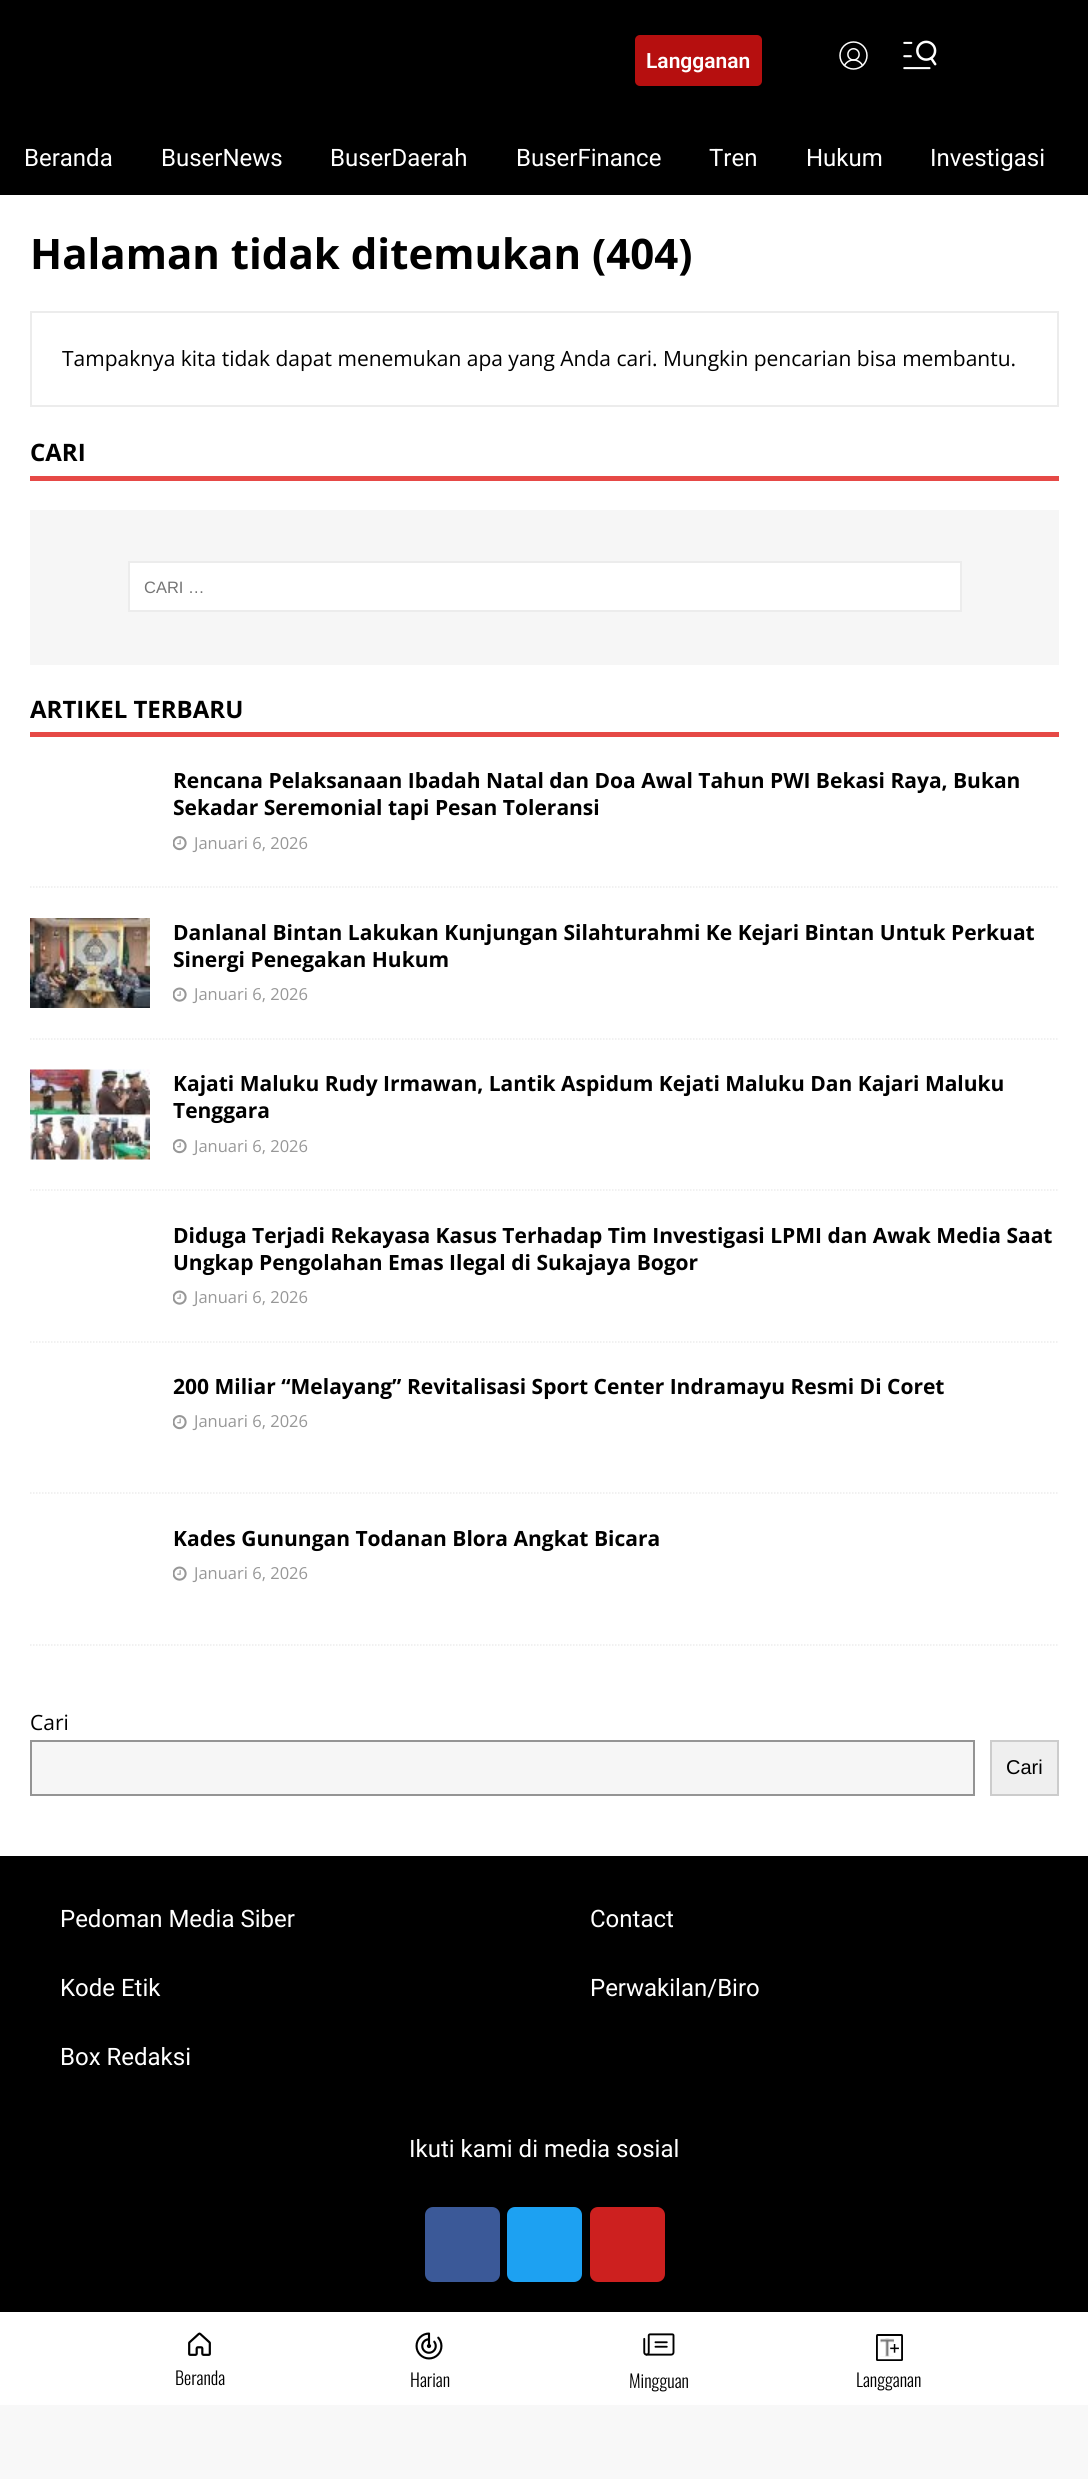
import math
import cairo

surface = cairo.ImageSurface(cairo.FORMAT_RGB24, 1088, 2479)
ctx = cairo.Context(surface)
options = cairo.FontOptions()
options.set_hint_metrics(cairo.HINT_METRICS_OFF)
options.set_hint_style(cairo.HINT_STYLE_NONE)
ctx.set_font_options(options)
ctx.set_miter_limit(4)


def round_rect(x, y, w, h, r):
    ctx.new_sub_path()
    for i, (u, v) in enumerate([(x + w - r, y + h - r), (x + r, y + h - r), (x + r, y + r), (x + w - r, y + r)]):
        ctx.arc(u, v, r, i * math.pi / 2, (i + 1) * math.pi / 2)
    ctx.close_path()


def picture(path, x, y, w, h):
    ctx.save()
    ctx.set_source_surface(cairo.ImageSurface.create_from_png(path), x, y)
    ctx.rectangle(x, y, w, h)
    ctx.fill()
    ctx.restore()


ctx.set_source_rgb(0.969, 0.969, 0.969)
ctx.paint()
ctx.set_source_rgb(0, 0, 0)
ctx.rectangle(0, 0, 1088, 195)
ctx.fill()
ctx.set_source_rgb(0.714, 0.059, 0.059)
round_rect(635, 35, 127, 51, 5)
ctx.fill()
ctx.select_font_face("Roboto SemiBold")
ctx.set_font_size(21)
ctx.set_source_rgb(1, 1, 1)
ctx.move_to(646, 68)
ctx.show_text("Langganan")
picture("img1.png", 839, 41, 29, 29)
picture("img2.png", 903, 40, 34, 30)
ctx.select_font_face("Roboto")
ctx.set_font_size(24)
ctx.move_to(24, 166)
ctx.show_text("Beranda")
ctx.move_to(161, 166)
ctx.show_text("BuserNews")
ctx.move_to(330, 166)
ctx.show_text("BuserDaerah")
ctx.move_to(516, 166)
ctx.show_text("BuserFinance")
ctx.move_to(709, 166)
ctx.show_text("Tren")
ctx.move_to(806, 166)
ctx.show_text("Hukum")
ctx.move_to(930, 166)
ctx.show_text("Investigasi")
ctx.rectangle(0, 195, 1088, 1661)
ctx.fill()
ctx.select_font_face("Open Sans", cairo.FONT_SLANT_NORMAL, cairo.FONT_WEIGHT_BOLD)
ctx.set_font_size(42)
ctx.set_source_rgb(0, 0, 0)
ctx.move_to(30, 269)
ctx.show_text("Halaman tidak ditemukan (404)")
ctx.rectangle(31, 312, 1027, 94)
ctx.set_source_rgb(0.922, 0.922, 0.922)
ctx.stroke()
ctx.select_font_face("Open Sans")
ctx.set_font_size(21)
ctx.set_source_rgb(0, 0, 0)
ctx.move_to(62, 366)
ctx.show_text("Tampaknya kita tidak dapat menemukan apa yang Anda cari. Mungkin pencarian bisa membantu.")
ctx.set_source_rgb(0.902, 0.286, 0.275)
ctx.rectangle(30, 476, 1029, 5)
ctx.fill()
ctx.select_font_face("Open Sans", cairo.FONT_SLANT_NORMAL, cairo.FONT_WEIGHT_BOLD)
ctx.set_font_size(24)
ctx.set_source_rgb(0, 0, 0)
ctx.move_to(30, 461)
ctx.show_text("CARI")
ctx.set_source_rgb(0.961, 0.961, 0.961)
ctx.rectangle(30, 510, 1029, 155)
ctx.fill()
ctx.set_source_rgb(1, 1, 1)
ctx.rectangle(129, 562, 832, 49)
ctx.fill_preserve()
ctx.set_source_rgb(0.922, 0.922, 0.922)
ctx.stroke()
ctx.select_font_face("Liberation Sans")
ctx.set_font_size(16.5)
ctx.set_source_rgb(0.459, 0.459, 0.459)
ctx.move_to(144, 593)
ctx.show_text("CARI …")
ctx.set_source_rgb(0.902, 0.286, 0.275)
ctx.rectangle(30, 732, 1029, 5)
ctx.fill()
ctx.select_font_face("Open Sans", cairo.FONT_SLANT_NORMAL, cairo.FONT_WEIGHT_BOLD)
ctx.set_font_size(24)
ctx.set_source_rgb(0, 0, 0)
ctx.move_to(30, 718)
ctx.show_text("ARTIKEL TERBARU")
ctx.new_path()
ctx.move_to(30, 887)
ctx.line_to(1059, 887)
ctx.set_source_rgb(0.922, 0.922, 0.922)
ctx.set_line_width(1.5)
ctx.set_dash([1.5, 1.5])
ctx.stroke()
ctx.set_font_size(21)
ctx.set_source_rgb(0, 0, 0)
ctx.move_to(173, 788)
ctx.show_text("Rencana Pelaksanaan Ibadah Natal dan Doa Awal Tahun PWI Bekasi Raya, Bukan")
ctx.move_to(173, 815)
ctx.show_text("Sekadar Seremonial tapi Pesan Toleransi")
picture("img3.png", 173, 836, 14, 15)
ctx.select_font_face("Open Sans")
ctx.set_font_size(16.5)
ctx.set_source_rgb(0.592, 0.592, 0.592)
ctx.move_to(194, 849)
ctx.show_text("Januari 6, 2026")
ctx.new_path()
ctx.move_to(30, 1039)
ctx.line_to(1059, 1039)
ctx.set_source_rgb(0.922, 0.922, 0.922)
ctx.stroke()
picture("img4.png", 30, 918, 120, 90)
ctx.select_font_face("Open Sans", cairo.FONT_SLANT_NORMAL, cairo.FONT_WEIGHT_BOLD)
ctx.set_font_size(21)
ctx.set_source_rgb(0, 0, 0)
ctx.move_to(173, 940)
ctx.show_text("Danlanal Bintan Lakukan Kunjungan Silahturahmi Ke Kejari Bintan Untuk Perkuat")
ctx.move_to(173, 967)
ctx.show_text("Sinergi Penegakan Hukum")
picture("img5.png", 173, 987, 14, 15)
ctx.select_font_face("Open Sans")
ctx.set_font_size(16.5)
ctx.set_source_rgb(0.592, 0.592, 0.592)
ctx.move_to(194, 1000)
ctx.show_text("Januari 6, 2026")
ctx.new_path()
ctx.move_to(30, 1190)
ctx.line_to(1059, 1190)
ctx.set_source_rgb(0.922, 0.922, 0.922)
ctx.stroke()
picture("img6.png", 30, 1069, 120, 91)
ctx.select_font_face("Open Sans", cairo.FONT_SLANT_NORMAL, cairo.FONT_WEIGHT_BOLD)
ctx.set_font_size(21)
ctx.set_source_rgb(0, 0, 0)
ctx.move_to(173, 1091)
ctx.show_text("Kajati Maluku Rudy Irmawan, Lantik Aspidum Kejati Maluku Dan Kajari Maluku")
ctx.move_to(173, 1118)
ctx.show_text("Tenggara")
picture("img3.png", 173, 1139, 14, 15)
ctx.select_font_face("Open Sans")
ctx.set_font_size(16.5)
ctx.set_source_rgb(0.592, 0.592, 0.592)
ctx.move_to(194, 1152)
ctx.show_text("Januari 6, 2026")
ctx.new_path()
ctx.move_to(30, 1342)
ctx.line_to(1059, 1342)
ctx.set_source_rgb(0.922, 0.922, 0.922)
ctx.stroke()
ctx.select_font_face("Open Sans", cairo.FONT_SLANT_NORMAL, cairo.FONT_WEIGHT_BOLD)
ctx.set_font_size(21)
ctx.set_source_rgb(0, 0, 0)
ctx.move_to(173, 1243)
ctx.show_text("Diduga Terjadi Rekayasa Kasus Terhadap Tim Investigasi LPMI dan Awak Media Saat")
ctx.move_to(173, 1270)
ctx.show_text("Ungkap Pengolahan Emas Ilegal di Sukajaya Bogor")
picture("img5.png", 173, 1290, 14, 15)
ctx.select_font_face("Open Sans")
ctx.set_font_size(16.5)
ctx.set_source_rgb(0.592, 0.592, 0.592)
ctx.move_to(194, 1303)
ctx.show_text("Januari 6, 2026")
ctx.new_path()
ctx.move_to(30, 1493)
ctx.line_to(1059, 1493)
ctx.set_source_rgb(0.922, 0.922, 0.922)
ctx.stroke()
ctx.select_font_face("Open Sans", cairo.FONT_SLANT_NORMAL, cairo.FONT_WEIGHT_BOLD)
ctx.set_font_size(21)
ctx.set_source_rgb(0, 0, 0)
ctx.move_to(173, 1394)
ctx.show_text("200 Miliar “Melayang” Revitalisasi Sport Center Indramayu Resmi Di Coret")
picture("img3.png", 173, 1415, 14, 15)
ctx.select_font_face("Open Sans")
ctx.set_font_size(16.5)
ctx.set_source_rgb(0.592, 0.592, 0.592)
ctx.move_to(194, 1427)
ctx.show_text("Januari 6, 2026")
ctx.new_path()
ctx.move_to(30, 1645)
ctx.line_to(1059, 1645)
ctx.set_source_rgb(0.922, 0.922, 0.922)
ctx.stroke()
ctx.select_font_face("Open Sans", cairo.FONT_SLANT_NORMAL, cairo.FONT_WEIGHT_BOLD)
ctx.set_font_size(21)
ctx.set_source_rgb(0, 0, 0)
ctx.move_to(173, 1546)
ctx.show_text("Kades Gunungan Todanan Blora Angkat Bicara")
picture("img5.png", 173, 1566, 14, 15)
ctx.select_font_face("Open Sans")
ctx.set_font_size(16.5)
ctx.set_source_rgb(0.592, 0.592, 0.592)
ctx.move_to(194, 1579)
ctx.show_text("Januari 6, 2026")
ctx.set_font_size(21)
ctx.set_source_rgb(0, 0, 0)
ctx.move_to(30, 1730)
ctx.show_text("Cari")
ctx.set_source_rgb(0.961, 0.961, 0.961)
ctx.rectangle(31, 1741, 943, 54)
ctx.fill_preserve()
ctx.set_source_rgb(0.58, 0.58, 0.58)
ctx.set_line_width(2)
ctx.set_dash([])
ctx.stroke()
ctx.set_source_rgb(0.937, 0.937, 0.937)
ctx.rectangle(991, 1741, 67, 54)
ctx.fill_preserve()
ctx.set_source_rgb(0.8, 0.8, 0.8)
ctx.stroke()
ctx.select_font_face("Liberation Sans")
ctx.set_font_size(20)
ctx.set_source_rgb(0, 0, 0)
ctx.move_to(1006, 1774)
ctx.show_text("Cari")
ctx.rectangle(0, 1856, 1088, 456)
ctx.fill()
ctx.select_font_face("Roboto")
ctx.set_font_size(24)
ctx.set_source_rgb(1, 1, 1)
ctx.move_to(60, 1927)
ctx.show_text("Pedoman Media Siber")
ctx.move_to(60, 1996)
ctx.show_text("Kode Etik")
ctx.move_to(60, 2065)
ctx.show_text("Box Redaksi")
ctx.move_to(590, 1927)
ctx.show_text("Contact")
ctx.move_to(590, 1996)
ctx.show_text("Perwakilan/Biro")
ctx.move_to(409, 2157)
ctx.show_text("Ikuti kami di media sosial")
ctx.set_source_rgb(0.231, 0.349, 0.596)
round_rect(425, 2207, 75, 75, 8)
ctx.fill()
ctx.set_source_rgb(0.114, 0.631, 0.949)
round_rect(507, 2207, 75, 75, 8)
ctx.fill()
ctx.set_source_rgb(0.804, 0.125, 0.122)
round_rect(590, 2207, 75, 75, 8)
ctx.fill()
ctx.set_source_rgb(1, 1, 1)
ctx.rectangle(0, 2312, 1088, 93)
ctx.fill()
picture("img7.png", 188, 2332, 23, 24)
ctx.select_font_face("Oswald Light")
ctx.set_font_size(18)
ctx.set_source_rgb(0, 0, 0)
ctx.move_to(175, 2385)
ctx.show_text("Beranda")
picture("img8.png", 415, 2332, 28, 28)
ctx.move_to(410, 2387)
ctx.show_text("Harian")
picture("img9.png", 643, 2333, 32, 23)
ctx.move_to(629, 2388)
ctx.show_text("Mingguan")
picture("img10.png", 876, 2334, 27, 27)
ctx.move_to(856, 2387)
ctx.show_text("Langganan")
surface.write_to_png("page.png")
